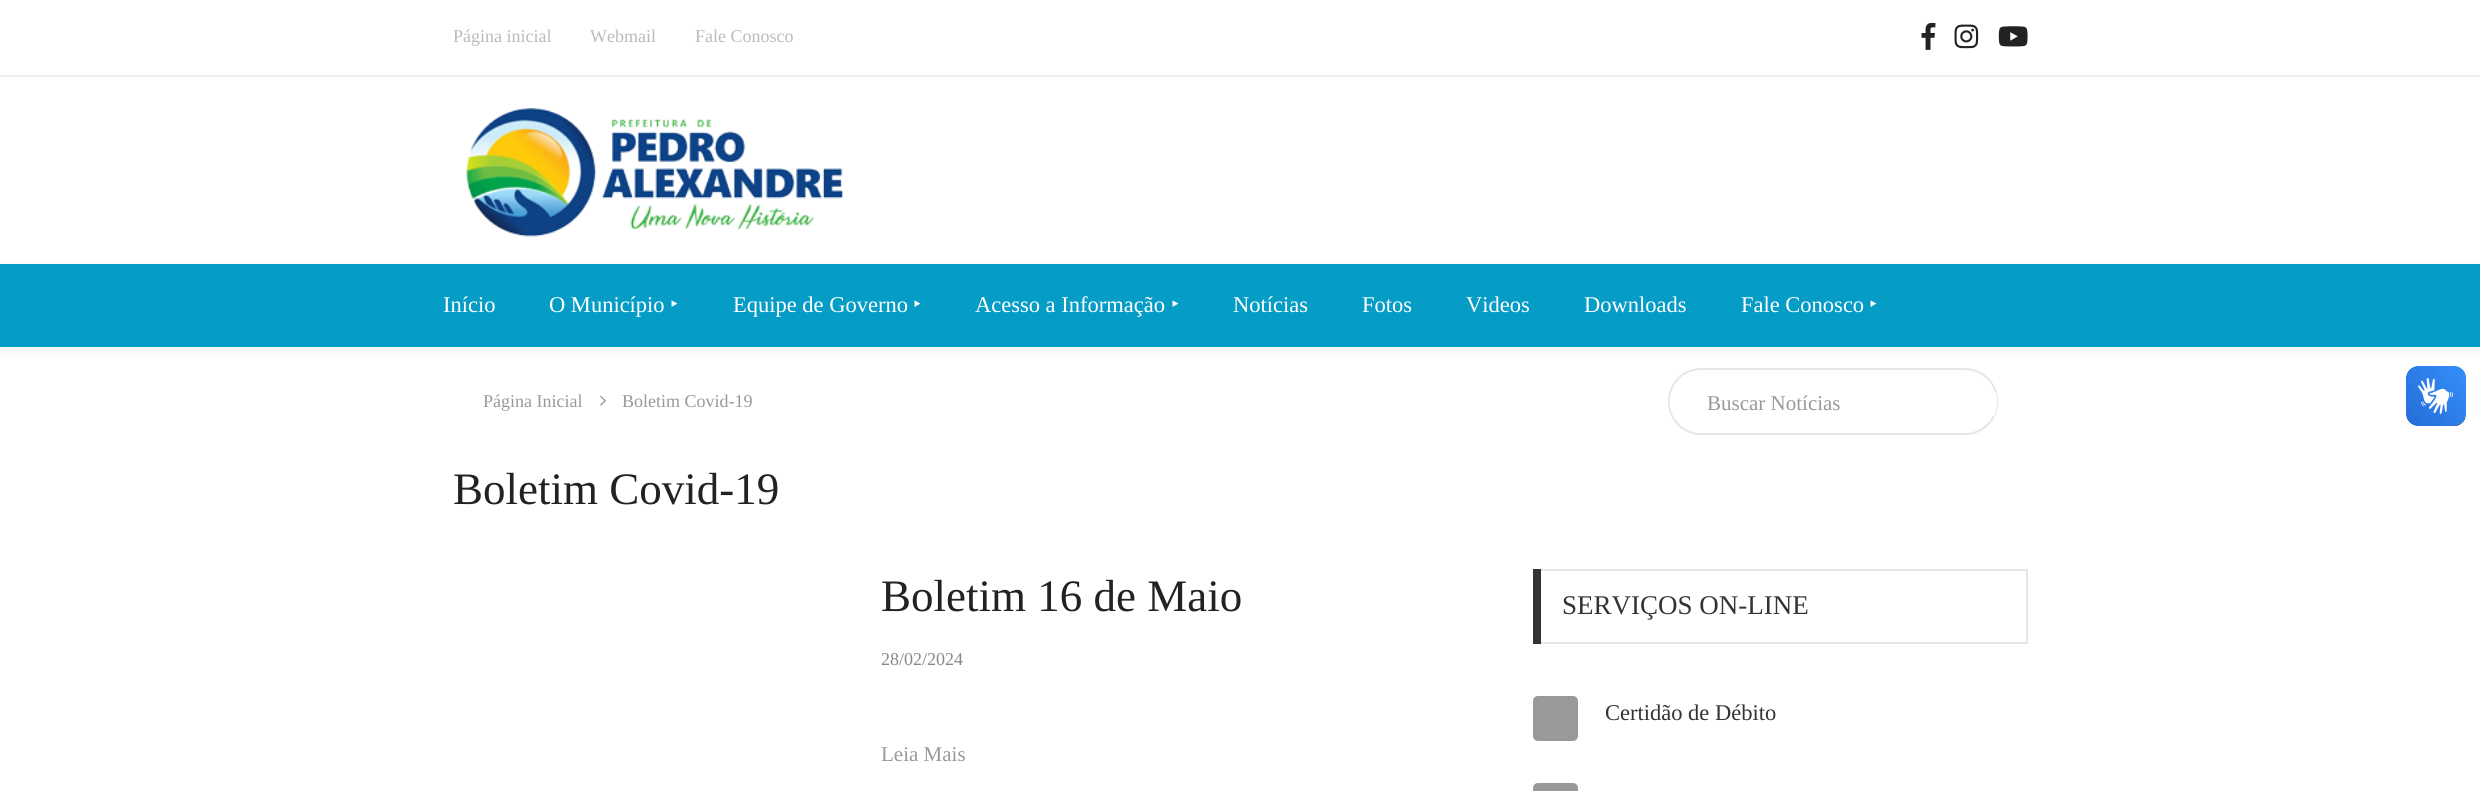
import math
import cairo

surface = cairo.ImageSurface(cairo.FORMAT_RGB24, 2480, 791)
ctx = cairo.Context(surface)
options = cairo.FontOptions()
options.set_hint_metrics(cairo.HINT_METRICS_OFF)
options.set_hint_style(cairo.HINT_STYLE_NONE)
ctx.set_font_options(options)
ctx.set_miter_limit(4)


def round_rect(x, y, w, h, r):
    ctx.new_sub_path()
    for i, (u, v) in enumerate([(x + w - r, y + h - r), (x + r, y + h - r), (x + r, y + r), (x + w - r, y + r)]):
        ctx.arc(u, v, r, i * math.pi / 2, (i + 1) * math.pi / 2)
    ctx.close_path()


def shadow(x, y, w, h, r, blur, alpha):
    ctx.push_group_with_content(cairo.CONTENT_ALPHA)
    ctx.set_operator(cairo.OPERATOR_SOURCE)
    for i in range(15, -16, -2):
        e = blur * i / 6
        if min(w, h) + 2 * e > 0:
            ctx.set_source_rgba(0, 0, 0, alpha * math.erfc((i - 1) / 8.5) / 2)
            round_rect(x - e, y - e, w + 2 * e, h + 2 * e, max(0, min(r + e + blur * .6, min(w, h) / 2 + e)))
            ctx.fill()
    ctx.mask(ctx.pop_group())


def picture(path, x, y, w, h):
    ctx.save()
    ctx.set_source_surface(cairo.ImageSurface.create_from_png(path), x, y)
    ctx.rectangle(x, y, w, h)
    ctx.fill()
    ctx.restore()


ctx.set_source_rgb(1, 1, 1)
ctx.paint()
ctx.set_source_rgb(0.925, 0.937, 0.937)
ctx.rectangle(0, 75, 2480, 2)
ctx.fill()
ctx.select_font_face("Liberation Serif")
ctx.set_font_size(18)
ctx.set_source_rgb(0.733, 0.733, 0.733)
ctx.move_to(453, 42)
ctx.show_text("Página inicial")
ctx.move_to(590, 42)
ctx.show_text("Webmail")
ctx.move_to(695, 42)
ctx.show_text("Fale Conosco")
picture("img1.png", 1921, 22, 15, 28)
picture("img2.png", 1954, 24, 25, 25)
picture("img3.png", 1998, 26, 30, 21)
picture("img4.png", 466, 108, 377, 129)
round_rect(1669, 369, 328, 65, 32)
ctx.set_source_rgb(0.902, 0.902, 0.902)
ctx.stroke()
ctx.set_source_rgb(0, 0, 0)
shadow(0, 269, 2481, 82, 0, 6, 0.05)
ctx.set_source_rgb(0.02, 0.612, 0.776)
ctx.rectangle(0, 264, 2480, 83)
ctx.fill()
ctx.set_font_size(22.5)
ctx.set_source_rgb(1, 1, 1)
ctx.move_to(443, 312)
ctx.show_text("Início")
ctx.move_to(549, 312)
ctx.show_text("O Município")
ctx.select_font_face("Noto Sans")
ctx.move_to(670, 312)
ctx.show_text("‣")
ctx.select_font_face("Liberation Serif")
ctx.move_to(733, 312)
ctx.show_text("Equipe de Governo")
ctx.select_font_face("Noto Sans")
ctx.move_to(913, 312)
ctx.show_text("‣")
ctx.select_font_face("Liberation Serif")
ctx.move_to(975, 312)
ctx.show_text("Acesso a Informação")
ctx.select_font_face("Noto Sans")
ctx.move_to(1171, 312)
ctx.show_text("‣")
ctx.select_font_face("Liberation Serif")
ctx.move_to(1233, 312)
ctx.show_text("Notícias")
ctx.move_to(1362, 312)
ctx.show_text("Fotos")
ctx.move_to(1466, 312)
ctx.show_text("Videos")
ctx.move_to(1584, 312)
ctx.show_text("Downloads")
ctx.move_to(1741, 312)
ctx.show_text("Fale Conosco")
ctx.select_font_face("Noto Sans")
ctx.move_to(1869, 312)
ctx.show_text("‣")
ctx.select_font_face("Liberation Serif")
ctx.set_font_size(18)
ctx.set_source_rgb(0.6, 0.6, 0.6)
ctx.move_to(483, 407)
ctx.show_text("Página Inicial")
picture("img5.png", 600, 395, 6, 11)
ctx.move_to(622, 407)
ctx.show_text("Boletim Covid-19")
ctx.save()
round_rect(1670, 369, 327, 65, 32)
ctx.clip()
ctx.set_source_rgb(1, 1, 1)
ctx.rectangle(1670, 392, 327, 24)
ctx.fill()
ctx.restore()
ctx.set_font_size(21)
ctx.move_to(1707, 410)
ctx.show_text("Buscar Notícias")
picture("img6.png", 2406, 366, 60, 60)
picture("img7.png", 2406, 366, 60, 60)
ctx.set_font_size(45)
ctx.set_source_rgb(0.133, 0.133, 0.133)
ctx.move_to(453, 504)
ctx.show_text("Boletim Covid-19")
ctx.move_to(881, 611)
ctx.show_text("Boletim 16 de Maio")
ctx.set_font_size(18)
ctx.set_source_rgb(0.533, 0.533, 0.533)
ctx.move_to(881, 665)
ctx.show_text("28/02/2024")
ctx.set_font_size(21)
ctx.set_source_rgb(0.6, 0.6, 0.6)
ctx.move_to(881, 761)
ctx.show_text("Leia Mais")
ctx.rectangle(1534, 570, 493, 73)
ctx.set_source_rgb(0.902, 0.902, 0.902)
ctx.stroke()
ctx.set_source_rgb(0.2, 0.2, 0.2)
ctx.rectangle(1533, 569, 8, 75)
ctx.fill()
ctx.set_font_size(27)
ctx.move_to(1562, 614)
ctx.show_text("SERVIÇOS ON-LINE")
ctx.set_source_rgb(0.6, 0.6, 0.6)
round_rect(1533, 696, 45, 45, 5)
ctx.fill()
ctx.set_font_size(22.5)
ctx.set_source_rgb(0.2, 0.2, 0.2)
ctx.move_to(1605, 720)
ctx.show_text("Certidão de Débito")
ctx.set_source_rgb(0.6, 0.6, 0.6)
round_rect(1533, 783, 45, 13, 5)
ctx.fill()
surface.write_to_png("page.png")
